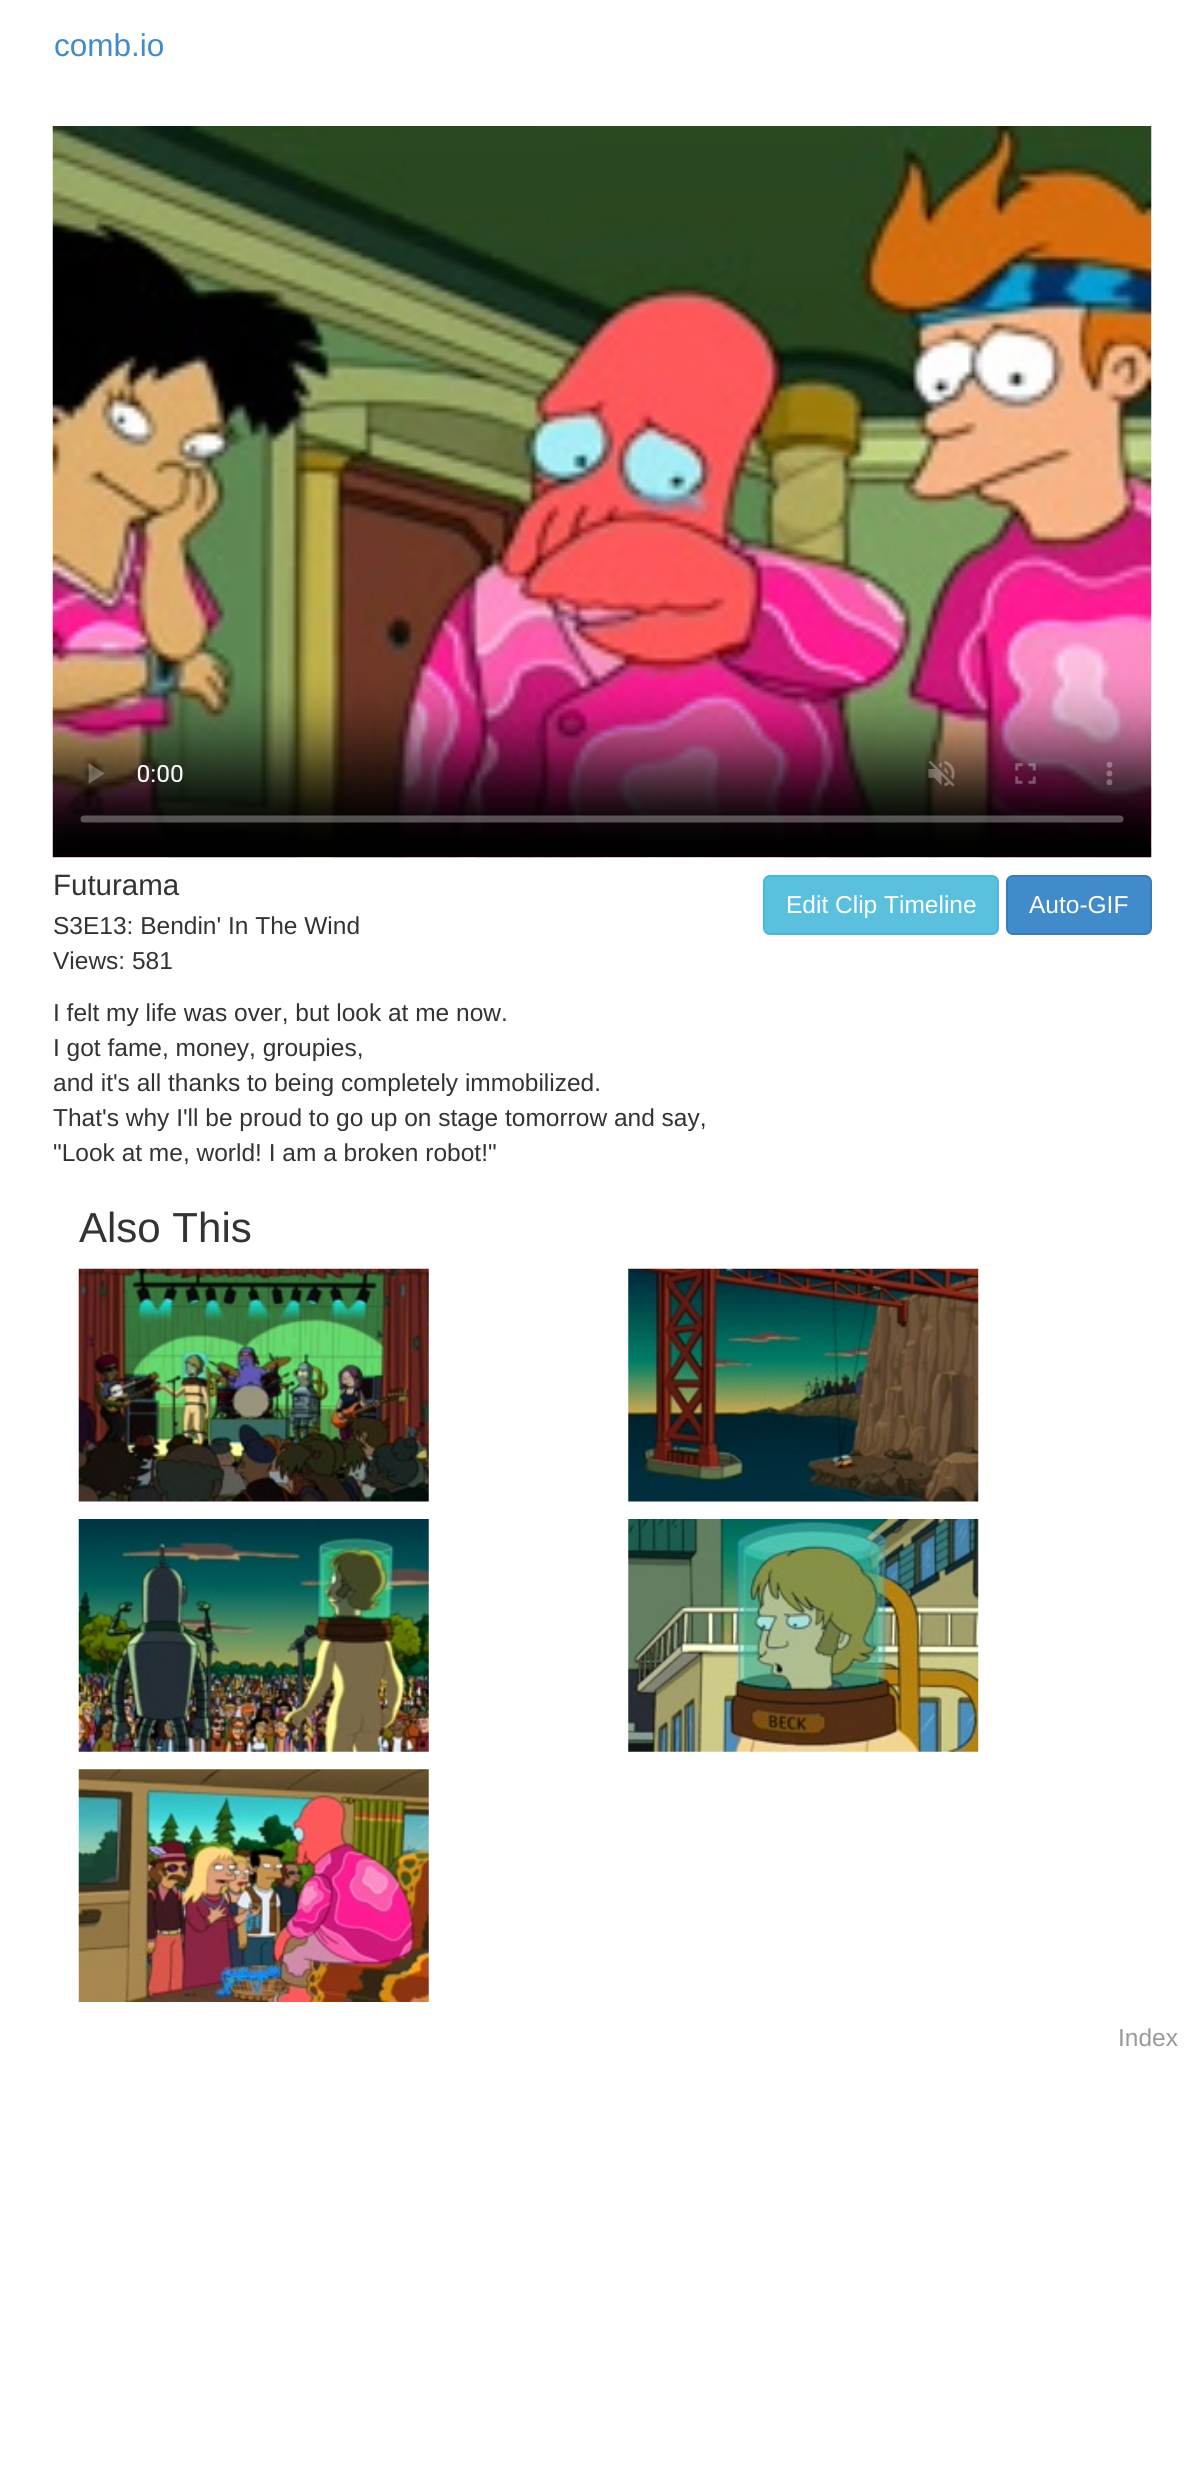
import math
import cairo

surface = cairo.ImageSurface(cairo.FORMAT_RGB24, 1204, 2483)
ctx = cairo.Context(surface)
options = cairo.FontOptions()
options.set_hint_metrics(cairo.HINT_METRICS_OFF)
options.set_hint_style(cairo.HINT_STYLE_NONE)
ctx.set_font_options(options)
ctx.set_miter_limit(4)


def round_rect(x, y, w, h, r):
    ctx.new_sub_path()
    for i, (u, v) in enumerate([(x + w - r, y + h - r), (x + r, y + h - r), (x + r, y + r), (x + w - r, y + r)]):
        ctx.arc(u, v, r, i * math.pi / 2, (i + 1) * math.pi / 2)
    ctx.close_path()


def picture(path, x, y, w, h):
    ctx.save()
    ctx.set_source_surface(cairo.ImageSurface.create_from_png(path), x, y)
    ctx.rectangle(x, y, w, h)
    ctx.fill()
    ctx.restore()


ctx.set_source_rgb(1, 1, 1)
ctx.paint()
ctx.select_font_face("Liberation Sans")
ctx.set_font_size(31.5)
ctx.set_source_rgb(0.259, 0.545, 0.792)
ctx.move_to(54, 56)
ctx.show_text("comb.io")
picture("img1.png", 52, 126, 1100, 732)
ctx.set_font_size(29.5)
ctx.set_source_rgb(0.2, 0.2, 0.2)
ctx.move_to(53, 895)
ctx.show_text("Futurama")
ctx.set_font_size(24.5)
ctx.move_to(53, 934)
ctx.show_text("S3E13: Bendin' In The Wind")
ctx.move_to(53, 969)
ctx.show_text("Views: 581")
ctx.move_to(53, 1021)
ctx.show_text("I felt my life was over, but look at me now.")
ctx.move_to(53, 1056)
ctx.show_text("I got fame, money, groupies,")
ctx.move_to(53, 1091)
ctx.show_text("and it's all thanks to being completely immobilized.")
ctx.move_to(53, 1126)
ctx.show_text("That's why I'll be proud to go up on stage tomorrow and say,")
ctx.move_to(53, 1161)
ctx.show_text("\"Look at me, world! I am a broken robot!\"")
ctx.set_source_rgb(0.357, 0.753, 0.871)
round_rect(764, 876, 234, 58, 6)
ctx.fill_preserve()
ctx.set_source_rgb(0.275, 0.722, 0.855)
ctx.stroke()
ctx.set_source_rgb(1, 1, 1)
ctx.move_to(786, 913)
ctx.show_text("Edit Clip Timeline")
ctx.set_source_rgb(0.259, 0.545, 0.792)
round_rect(1007, 876, 144, 58, 6)
ctx.fill_preserve()
ctx.set_source_rgb(0.208, 0.494, 0.741)
ctx.stroke()
ctx.set_source_rgb(1, 1, 1)
ctx.move_to(1029, 913)
ctx.show_text("Auto-GIF")
ctx.set_font_size(42)
ctx.set_source_rgb(0.2, 0.2, 0.2)
ctx.move_to(79, 1242)
ctx.show_text("Also This")
picture("img2.png", 78, 1268, 351, 234)
picture("img3.png", 628, 1268, 351, 234)
picture("img4.png", 78, 1519, 351, 233)
picture("img5.png", 628, 1519, 351, 233)
picture("img6.png", 78, 1769, 351, 233)
ctx.set_font_size(24.5)
ctx.set_source_rgb(0.6, 0.6, 0.6)
ctx.move_to(1118, 2046)
ctx.show_text("Index")
surface.write_to_png("page.png")
